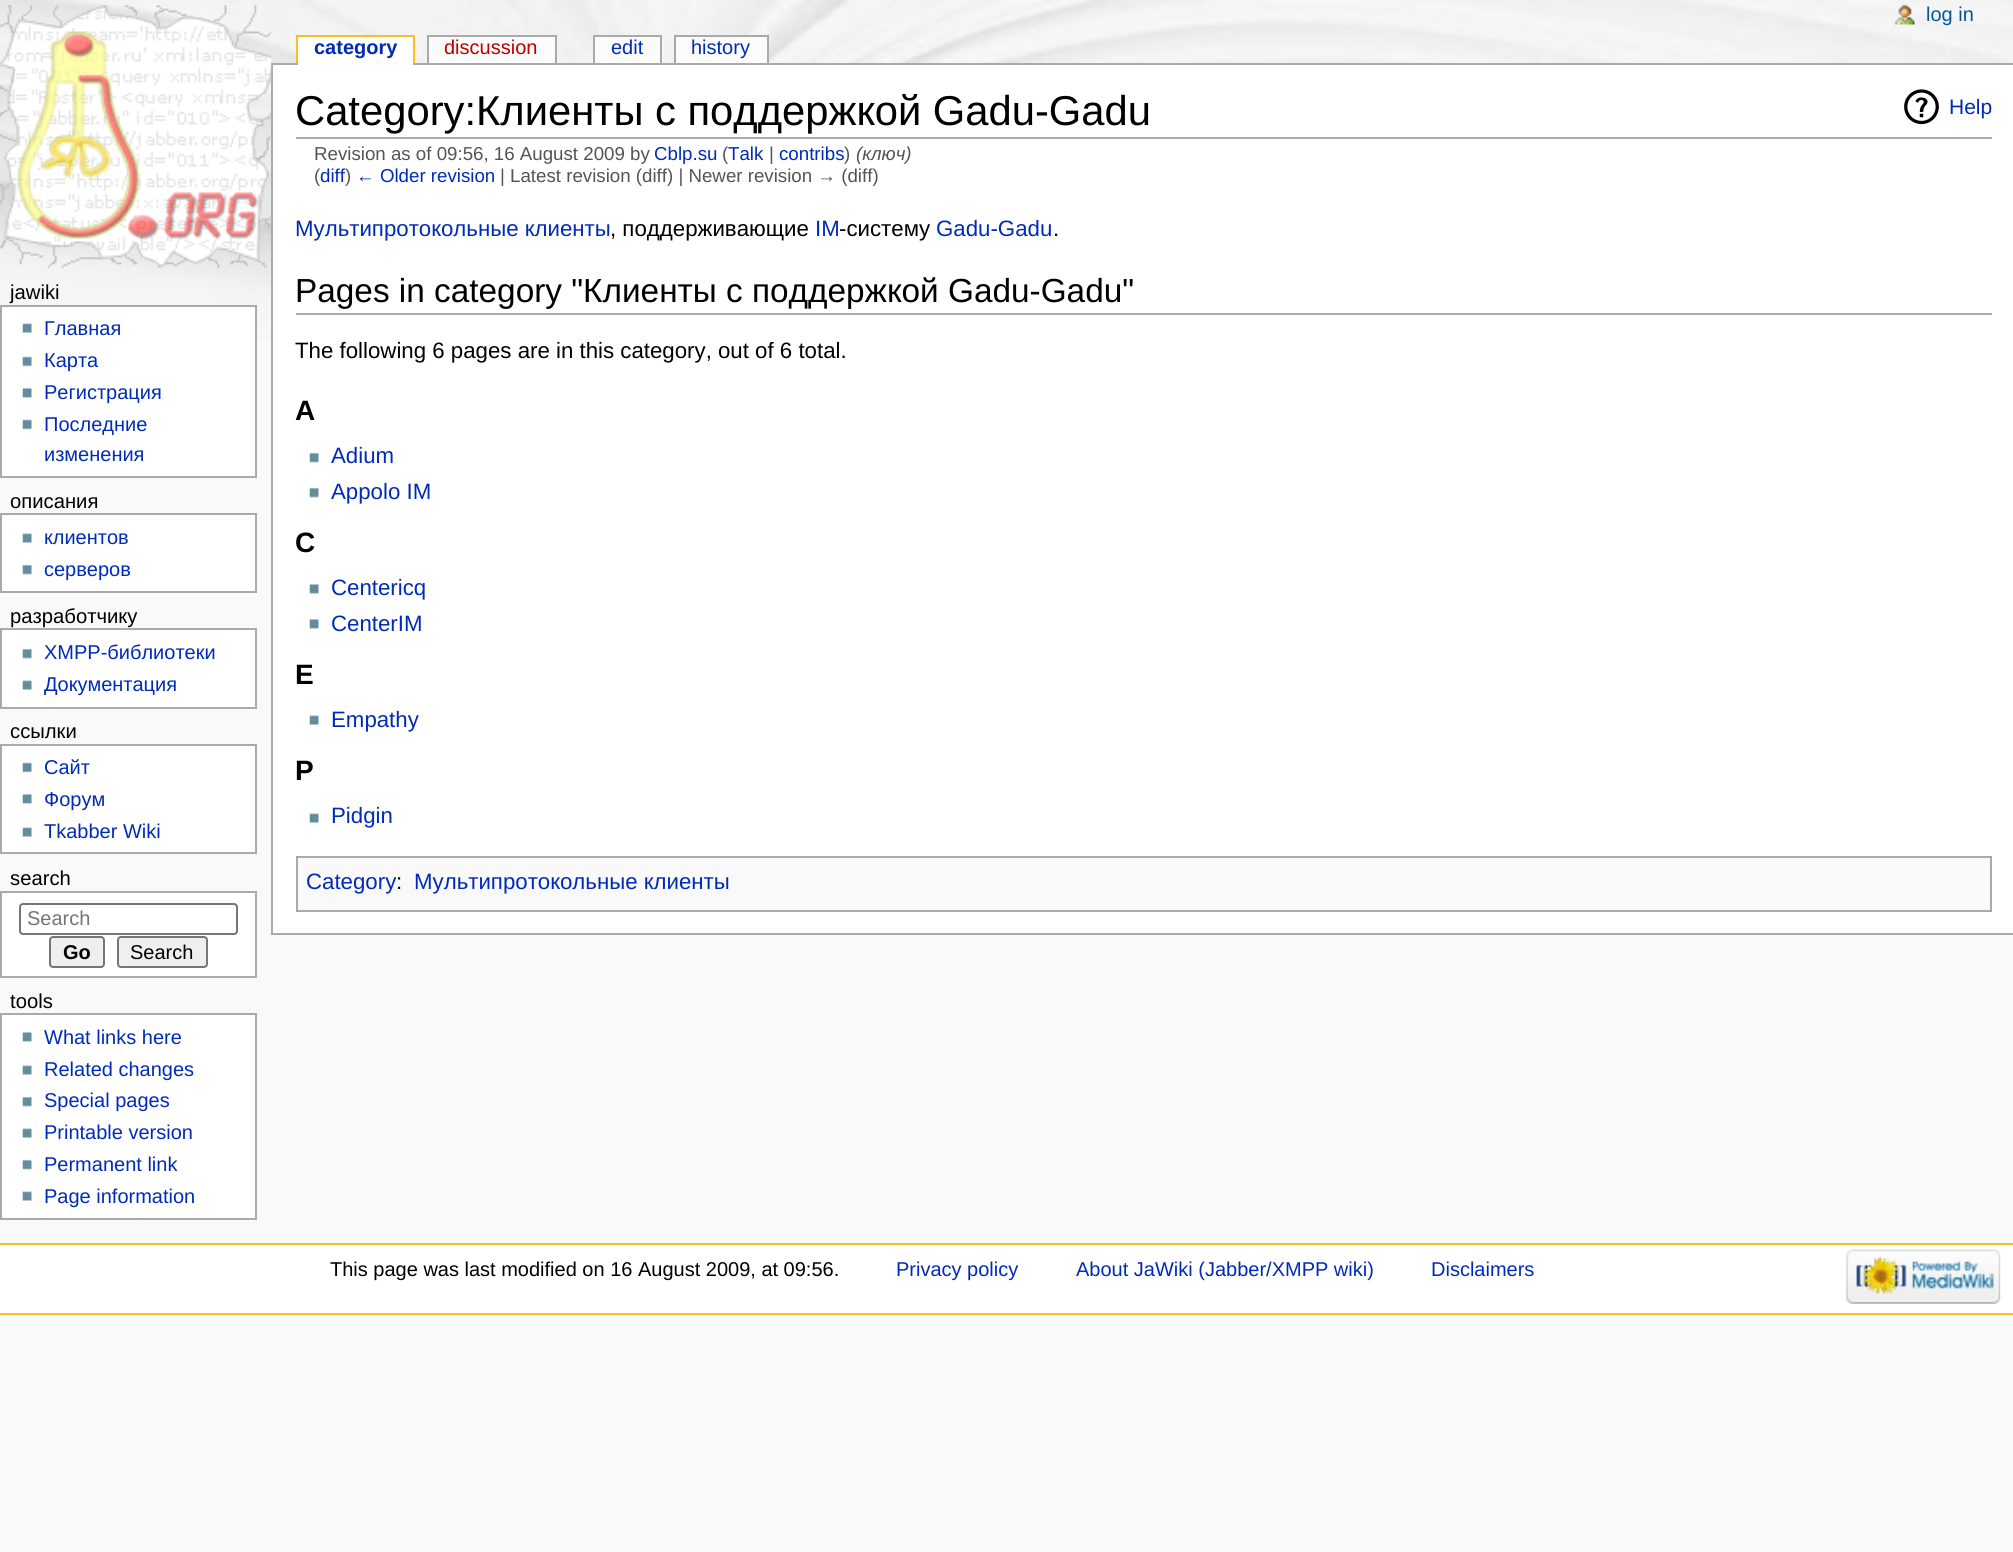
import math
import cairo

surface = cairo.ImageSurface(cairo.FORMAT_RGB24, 2013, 1552)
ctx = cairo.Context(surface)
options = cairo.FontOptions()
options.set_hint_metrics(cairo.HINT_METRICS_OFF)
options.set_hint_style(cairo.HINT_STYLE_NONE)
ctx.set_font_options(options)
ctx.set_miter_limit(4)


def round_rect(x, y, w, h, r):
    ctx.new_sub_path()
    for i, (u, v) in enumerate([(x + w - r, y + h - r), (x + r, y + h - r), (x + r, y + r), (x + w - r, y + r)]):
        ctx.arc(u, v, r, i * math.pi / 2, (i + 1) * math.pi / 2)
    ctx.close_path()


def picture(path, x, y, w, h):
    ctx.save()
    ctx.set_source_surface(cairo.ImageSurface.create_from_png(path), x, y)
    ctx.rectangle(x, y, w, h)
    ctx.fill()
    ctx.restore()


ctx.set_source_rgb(0.976, 0.976, 0.976)
ctx.paint()
picture("img1.png", 0, 0, 2013, 340)
ctx.set_source_rgb(0.667, 0.667, 0.667)
ctx.rectangle(271, 63, 1742, 2)
ctx.fill()
ctx.rectangle(271, 933, 1742, 2)
ctx.fill()
ctx.rectangle(271, 63, 2, 872)
ctx.fill()
picture("img2.png", 0, 5, 272, 263)
picture("img3.png", 1894, 4, 21, 21)
ctx.select_font_face("Liberation Sans")
ctx.set_font_size(20)
ctx.set_source_rgb(0, 0.345, 0.588)
ctx.move_to(1926, 21)
ctx.show_text("log in")
ctx.set_source_rgb(1, 1, 1)
ctx.rectangle(298, 37, 115, 28)
ctx.fill()
ctx.select_font_face("Liberation Sans", cairo.FONT_SLANT_NORMAL, cairo.FONT_WEIGHT_BOLD)
ctx.set_source_rgb(0, 0.169, 0.722)
ctx.move_to(314, 54)
ctx.show_text("category")
ctx.set_source_rgb(0.98, 0.741, 0.137)
ctx.rectangle(296, 35, 119, 2)
ctx.fill()
ctx.rectangle(413, 35, 2, 28)
ctx.fill()
ctx.rectangle(296, 35, 2, 28)
ctx.fill()
ctx.set_source_rgb(0.984, 0.984, 0.984)
ctx.rectangle(429, 37, 126, 26)
ctx.fill()
ctx.select_font_face("Liberation Sans")
ctx.set_source_rgb(0.729, 0, 0)
ctx.move_to(444, 54)
ctx.show_text("discussion")
ctx.set_source_rgb(0.667, 0.667, 0.667)
ctx.rectangle(427, 35, 130, 2)
ctx.fill()
ctx.rectangle(555, 35, 2, 28)
ctx.fill()
ctx.rectangle(427, 35, 2, 28)
ctx.fill()
ctx.set_source_rgb(0.984, 0.984, 0.984)
ctx.rectangle(595, 37, 65, 26)
ctx.fill()
ctx.set_source_rgb(0, 0.169, 0.722)
ctx.move_to(611, 54)
ctx.show_text("edit")
ctx.set_source_rgb(0.667, 0.667, 0.667)
ctx.rectangle(593, 35, 69, 2)
ctx.fill()
ctx.rectangle(660, 35, 2, 28)
ctx.fill()
ctx.rectangle(593, 35, 2, 28)
ctx.fill()
ctx.set_source_rgb(0.984, 0.984, 0.984)
ctx.rectangle(676, 37, 91, 26)
ctx.fill()
ctx.set_source_rgb(0, 0.169, 0.722)
ctx.move_to(691, 54)
ctx.show_text("history")
ctx.set_source_rgb(0.667, 0.667, 0.667)
ctx.rectangle(674, 35, 94, 2)
ctx.fill()
ctx.rectangle(767, 35, 2, 28)
ctx.fill()
ctx.rectangle(674, 35, 2, 28)
ctx.fill()
ctx.set_font_size(20.25)
ctx.set_source_rgb(0, 0, 0)
ctx.move_to(10, 299)
ctx.show_text("jawiki")
ctx.set_source_rgb(1, 1, 1)
ctx.rectangle(1, 306, 255, 171)
ctx.fill_preserve()
ctx.set_source_rgb(0.667, 0.667, 0.667)
ctx.stroke()
picture("img4.png", 22, 323, 10, 10)
ctx.set_font_size(20)
ctx.set_source_rgb(0, 0.169, 0.722)
ctx.move_to(44, 335)
ctx.show_text("Главная")
picture("img5.png", 22, 356, 10, 11)
ctx.move_to(44, 367)
ctx.show_text("Карта")
picture("img6.png", 22, 388, 10, 10)
ctx.move_to(44, 399)
ctx.show_text("Регистрация")
picture("img5.png", 22, 419, 10, 11)
ctx.move_to(44, 431)
ctx.show_text("Последние")
ctx.move_to(44, 461)
ctx.show_text("изменения")
ctx.set_font_size(20.25)
ctx.set_source_rgb(0, 0, 0)
ctx.move_to(10, 508)
ctx.show_text("описания")
ctx.set_source_rgb(1, 1, 1)
ctx.rectangle(1, 514, 255, 78)
ctx.fill_preserve()
ctx.set_source_rgb(0.667, 0.667, 0.667)
ctx.stroke()
picture("img4.png", 22, 533, 10, 10)
ctx.set_font_size(20)
ctx.set_source_rgb(0, 0.169, 0.722)
ctx.move_to(44, 544)
ctx.show_text("клиентов")
picture("img7.png", 22, 564, 10, 11)
ctx.move_to(44, 576)
ctx.show_text("серверов")
ctx.set_font_size(20.25)
ctx.set_source_rgb(0, 0, 0)
ctx.move_to(10, 623)
ctx.show_text("разработчику")
ctx.set_source_rgb(1, 1, 1)
ctx.rectangle(1, 629, 255, 79)
ctx.fill_preserve()
ctx.set_source_rgb(0.667, 0.667, 0.667)
ctx.stroke()
picture("img7.png", 22, 648, 10, 11)
ctx.set_font_size(20)
ctx.set_source_rgb(0, 0.169, 0.722)
ctx.move_to(44, 659)
ctx.show_text("XMPP-библиотеки")
picture("img4.png", 22, 680, 10, 10)
ctx.move_to(44, 691)
ctx.show_text("Документация")
ctx.set_font_size(20.25)
ctx.set_source_rgb(0, 0, 0)
ctx.move_to(10, 738)
ctx.show_text("ссылки")
ctx.set_source_rgb(1, 1, 1)
ctx.rectangle(1, 745, 255, 108)
ctx.fill_preserve()
ctx.set_source_rgb(0.667, 0.667, 0.667)
ctx.stroke()
picture("img5.png", 22, 762, 10, 11)
ctx.set_font_size(20)
ctx.set_source_rgb(0, 0.169, 0.722)
ctx.move_to(44, 774)
ctx.show_text("Сайт")
picture("img6.png", 22, 794, 10, 10)
ctx.move_to(44, 806)
ctx.show_text("Форум")
picture("img4.png", 22, 827, 10, 10)
ctx.move_to(44, 838)
ctx.show_text("Tkabber Wiki")
ctx.set_font_size(20.25)
ctx.set_source_rgb(0, 0, 0)
ctx.move_to(10, 885)
ctx.show_text("search")
ctx.set_source_rgb(1, 1, 1)
ctx.rectangle(1, 892, 255, 85)
ctx.fill_preserve()
ctx.set_source_rgb(0.667, 0.667, 0.667)
ctx.stroke()
round_rect(20, 904, 217, 30, 3)
ctx.set_source_rgb(0.463, 0.463, 0.463)
ctx.stroke()
ctx.set_font_size(20)
ctx.set_source_rgb(0.459, 0.459, 0.459)
ctx.move_to(27, 925)
ctx.show_text("Search")
ctx.set_source_rgb(0.937, 0.937, 0.937)
round_rect(50, 937, 54, 30, 3)
ctx.fill_preserve()
ctx.set_source_rgb(0.463, 0.463, 0.463)
ctx.stroke()
ctx.select_font_face("Liberation Sans", cairo.FONT_SLANT_NORMAL, cairo.FONT_WEIGHT_BOLD)
ctx.set_source_rgb(0, 0, 0)
ctx.move_to(63, 959)
ctx.show_text("Go")
ctx.set_source_rgb(0.937, 0.937, 0.937)
round_rect(118, 937, 89, 30, 3)
ctx.fill_preserve()
ctx.set_source_rgb(0.463, 0.463, 0.463)
ctx.stroke()
ctx.select_font_face("Liberation Sans")
ctx.set_source_rgb(0, 0, 0)
ctx.move_to(130, 959)
ctx.show_text("Search")
ctx.set_font_size(20.25)
ctx.move_to(10, 1008)
ctx.show_text("tools")
ctx.set_source_rgb(1, 1, 1)
ctx.rectangle(1, 1014, 255, 205)
ctx.fill_preserve()
ctx.set_source_rgb(0.667, 0.667, 0.667)
ctx.stroke()
picture("img6.png", 22, 1032, 10, 10)
ctx.set_font_size(20)
ctx.set_source_rgb(0, 0.169, 0.722)
ctx.move_to(44, 1044)
ctx.show_text("What links here")
picture("img4.png", 22, 1065, 10, 10)
ctx.move_to(44, 1076)
ctx.show_text("Related changes")
picture("img7.png", 22, 1096, 10, 11)
ctx.move_to(44, 1107)
ctx.show_text("Special pages")
picture("img4.png", 22, 1128, 10, 10)
ctx.move_to(44, 1139)
ctx.show_text("Printable version")
picture("img7.png", 22, 1159, 10, 11)
ctx.move_to(44, 1171)
ctx.show_text("Permanent link")
picture("img4.png", 22, 1191, 10, 10)
ctx.move_to(44, 1203)
ctx.show_text("Page information")
ctx.set_source_rgb(1, 1, 1)
ctx.rectangle(273, 65, 1740, 868)
ctx.fill()
ctx.set_source_rgb(0.667, 0.667, 0.667)
ctx.rectangle(296, 137, 1696, 2)
ctx.fill()
ctx.set_font_size(41.75)
ctx.set_source_rgb(0, 0, 0)
ctx.move_to(295, 125)
ctx.show_text("Category:Клиенты с поддержкой Gadu-Gadu")
picture("img8.png", 1904, 89, 35, 36)
ctx.set_font_size(21)
ctx.set_source_rgb(0, 0.169, 0.722)
ctx.move_to(1949, 114)
ctx.show_text("Help")
ctx.set_font_size(18.7)
ctx.set_source_rgb(0.329, 0.329, 0.329)
ctx.move_to(314, 160)
ctx.show_text("Revision as of 09:56, 16 August 2009 by")
ctx.set_source_rgb(0, 0.169, 0.722)
ctx.move_to(654, 160)
ctx.show_text("Cblp.su")
ctx.set_source_rgb(0.329, 0.329, 0.329)
ctx.move_to(722, 160)
ctx.show_text("(")
ctx.set_source_rgb(0, 0.169, 0.722)
ctx.move_to(728, 160)
ctx.show_text("Talk")
ctx.set_source_rgb(0.329, 0.329, 0.329)
ctx.move_to(769, 160)
ctx.show_text("|")
ctx.set_source_rgb(0, 0.169, 0.722)
ctx.move_to(779, 160)
ctx.show_text("contribs")
ctx.set_source_rgb(0.329, 0.329, 0.329)
ctx.move_to(844, 160)
ctx.show_text(")")
ctx.select_font_face("Liberation Sans", cairo.FONT_SLANT_ITALIC)
ctx.move_to(856, 160)
ctx.show_text("(ключ)")
ctx.select_font_face("Liberation Sans")
ctx.move_to(314, 182)
ctx.show_text("(")
ctx.set_source_rgb(0, 0.169, 0.722)
ctx.move_to(320, 182)
ctx.show_text("diff")
ctx.set_source_rgb(0.329, 0.329, 0.329)
ctx.move_to(345, 182)
ctx.show_text(")")
ctx.set_source_rgb(0, 0.169, 0.722)
ctx.move_to(356, 182)
ctx.show_text("← Older revision")
ctx.set_source_rgb(0.329, 0.329, 0.329)
ctx.move_to(500, 182)
ctx.show_text("| Latest revision (diff) | Newer revision → (diff)")
ctx.set_font_size(22.25)
ctx.set_source_rgb(0, 0.169, 0.722)
ctx.move_to(295, 236)
ctx.show_text("Мультипротокольные клиенты")
ctx.set_source_rgb(0, 0, 0)
ctx.move_to(610, 236)
ctx.show_text(", поддерживающие")
ctx.set_source_rgb(0, 0.169, 0.722)
ctx.move_to(815, 236)
ctx.show_text("IM")
ctx.set_source_rgb(0, 0, 0)
ctx.move_to(839, 236)
ctx.show_text("-систему")
ctx.set_source_rgb(0, 0.169, 0.722)
ctx.move_to(936, 236)
ctx.show_text("Gadu-Gadu")
ctx.set_source_rgb(0, 0, 0)
ctx.move_to(1053, 236)
ctx.show_text(".")
ctx.set_source_rgb(0.667, 0.667, 0.667)
ctx.rectangle(296, 313, 1696, 2)
ctx.fill()
ctx.set_font_size(33.35)
ctx.set_source_rgb(0, 0, 0)
ctx.move_to(295, 302)
ctx.show_text("Pages in category \"Клиенты с поддержкой Gadu-Gadu\"")
ctx.set_font_size(22.25)
ctx.move_to(295, 358)
ctx.show_text("The following 6 pages are in this category, out of 6 total.")
ctx.select_font_face("Liberation Sans", cairo.FONT_SLANT_NORMAL, cairo.FONT_WEIGHT_BOLD)
ctx.set_font_size(28)
ctx.move_to(295, 420)
ctx.show_text("A")
picture("img7.png", 309, 452, 10, 11)
ctx.select_font_face("Liberation Sans")
ctx.set_font_size(22.25)
ctx.set_source_rgb(0, 0.169, 0.722)
ctx.move_to(331, 463)
ctx.show_text("Adium")
picture("img7.png", 309, 487, 10, 11)
ctx.move_to(331, 499)
ctx.show_text("Appolo IM")
ctx.select_font_face("Liberation Sans", cairo.FONT_SLANT_NORMAL, cairo.FONT_WEIGHT_BOLD)
ctx.set_font_size(28)
ctx.set_source_rgb(0, 0, 0)
ctx.move_to(295, 552)
ctx.show_text("C")
picture("img6.png", 309, 584, 10, 10)
ctx.select_font_face("Liberation Sans")
ctx.set_font_size(22.25)
ctx.set_source_rgb(0, 0.169, 0.722)
ctx.move_to(331, 595)
ctx.show_text("Centericq")
picture("img6.png", 309, 619, 10, 10)
ctx.move_to(331, 631)
ctx.show_text("CenterIM")
ctx.select_font_face("Liberation Sans", cairo.FONT_SLANT_NORMAL, cairo.FONT_WEIGHT_BOLD)
ctx.set_font_size(28)
ctx.set_source_rgb(0, 0, 0)
ctx.move_to(295, 684)
ctx.show_text("E")
picture("img4.png", 309, 715, 10, 10)
ctx.select_font_face("Liberation Sans")
ctx.set_font_size(22.25)
ctx.set_source_rgb(0, 0.169, 0.722)
ctx.move_to(331, 727)
ctx.show_text("Empathy")
ctx.select_font_face("Liberation Sans", cairo.FONT_SLANT_NORMAL, cairo.FONT_WEIGHT_BOLD)
ctx.set_font_size(28)
ctx.set_source_rgb(0, 0, 0)
ctx.move_to(295, 780)
ctx.show_text("P")
picture("img4.png", 309, 813, 10, 10)
ctx.select_font_face("Liberation Sans")
ctx.set_font_size(22.25)
ctx.set_source_rgb(0, 0.169, 0.722)
ctx.move_to(331, 823)
ctx.show_text("Pidgin")
ctx.set_source_rgb(0.976, 0.976, 0.976)
ctx.rectangle(297, 857, 1694, 54)
ctx.fill_preserve()
ctx.set_source_rgb(0.667, 0.667, 0.667)
ctx.stroke()
ctx.set_source_rgb(0, 0.169, 0.722)
ctx.move_to(306, 889)
ctx.show_text("Category")
ctx.set_source_rgb(0, 0, 0)
ctx.move_to(396, 889)
ctx.show_text(":")
ctx.set_source_rgb(0, 0.169, 0.722)
ctx.move_to(414, 889)
ctx.show_text("Мультипротокольные клиенты")
ctx.set_source_rgb(1, 1, 1)
ctx.rectangle(0, 1245, 2013, 68)
ctx.fill()
ctx.set_source_rgb(0.98, 0.741, 0.137)
ctx.rectangle(0, 1243, 2013, 2)
ctx.fill()
ctx.rectangle(0, 1313, 2013, 2)
ctx.fill()
ctx.set_font_size(20)
ctx.set_source_rgb(0, 0, 0)
ctx.move_to(330, 1276)
ctx.show_text("This page was last modified on 16 August 2009, at 09:56.")
ctx.set_source_rgb(0, 0.169, 0.722)
ctx.move_to(896, 1276)
ctx.show_text("Privacy policy")
ctx.move_to(1076, 1276)
ctx.show_text("About JaWiki (Jabber/XMPP wiki)")
ctx.move_to(1431, 1276)
ctx.show_text("Disclaimers")
picture("img9.png", 1846, 1249, 155, 55)
surface.write_to_png("page.png")
